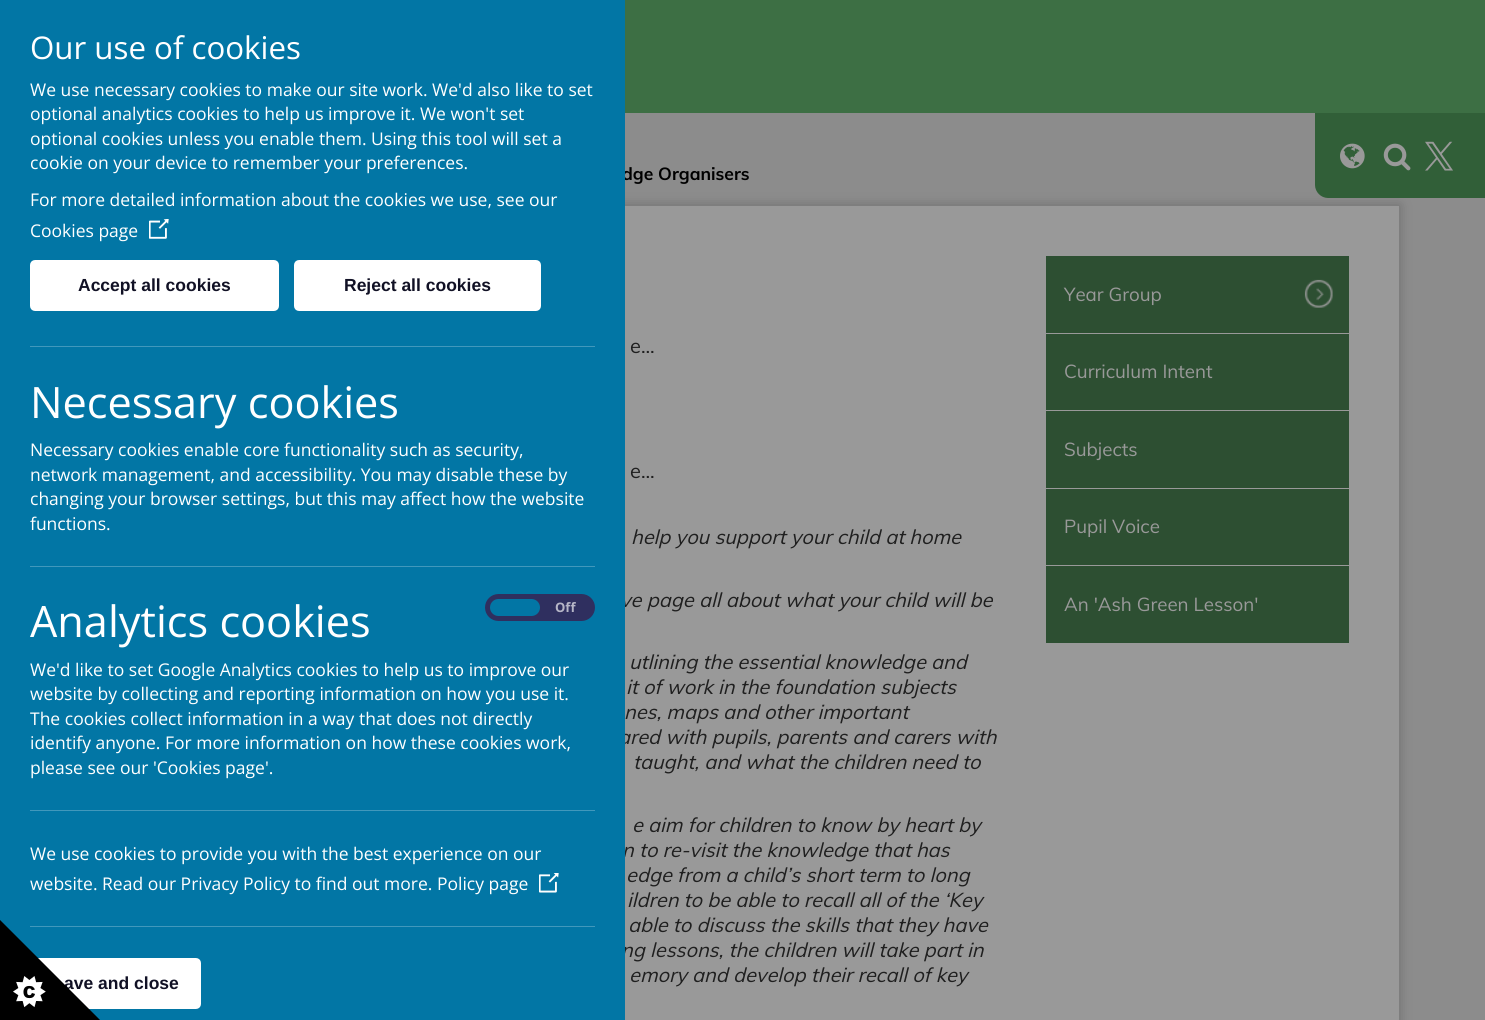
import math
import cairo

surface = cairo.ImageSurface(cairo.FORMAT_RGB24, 1485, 1020)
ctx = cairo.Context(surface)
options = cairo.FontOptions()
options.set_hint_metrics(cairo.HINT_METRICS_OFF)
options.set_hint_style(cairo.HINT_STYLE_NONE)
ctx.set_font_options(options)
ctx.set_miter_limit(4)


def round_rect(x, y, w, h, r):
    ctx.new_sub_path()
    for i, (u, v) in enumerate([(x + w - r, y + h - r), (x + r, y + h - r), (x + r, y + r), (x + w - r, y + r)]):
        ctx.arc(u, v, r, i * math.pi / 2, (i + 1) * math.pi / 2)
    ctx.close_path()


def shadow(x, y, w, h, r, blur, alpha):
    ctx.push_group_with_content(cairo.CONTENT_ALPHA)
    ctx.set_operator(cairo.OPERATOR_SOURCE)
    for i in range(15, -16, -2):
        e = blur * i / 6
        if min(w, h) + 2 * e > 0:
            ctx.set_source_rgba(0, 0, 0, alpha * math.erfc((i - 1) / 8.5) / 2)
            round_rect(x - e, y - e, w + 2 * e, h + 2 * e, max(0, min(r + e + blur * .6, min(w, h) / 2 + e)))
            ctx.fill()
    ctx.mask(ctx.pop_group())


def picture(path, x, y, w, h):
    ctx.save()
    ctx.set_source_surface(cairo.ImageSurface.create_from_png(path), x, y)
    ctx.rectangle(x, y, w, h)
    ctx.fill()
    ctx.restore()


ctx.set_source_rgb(0.549, 0.549, 0.549)
ctx.paint()
ctx.select_font_face("Muli", cairo.FONT_SLANT_NORMAL, cairo.FONT_WEIGHT_BOLD)
ctx.set_font_size(17.5)
ctx.set_source_rgb(0, 0, 0)
ctx.move_to(622, 180)
ctx.show_text("dge Organisers")
ctx.set_source_rgb(0, 0, 0)
shadow(85, 205, 1315, 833, 0, 6, 0.2)
ctx.set_source_rgb(0.6, 0.6, 0.6)
ctx.rectangle(625, 206, 774, 814)
ctx.fill()
ctx.select_font_face("Muli", cairo.FONT_SLANT_ITALIC)
ctx.set_font_size(20)
ctx.set_source_rgb(0.122, 0.122, 0.122)
ctx.move_to(620, 607)
ctx.show_text("ve page all about what your child will be")
ctx.move_to(618, 744)
ctx.show_text("ared with pupils, parents and carers with")
ctx.move_to(622, 857)
ctx.show_text("n to re-visit the knowledge that has")
ctx.move_to(621, 957)
ctx.show_text("ng lessons, the children will take part in")
ctx.set_source_rgb(0.008, 0.463, 0.647)
ctx.rectangle(0, 0, 625, 1020)
ctx.fill()
ctx.select_font_face("Open Sans")
ctx.set_font_size(31.25)
ctx.set_source_rgb(1, 1, 1)
ctx.move_to(30, 59)
ctx.show_text("Our use of cookies")
ctx.set_font_size(17.5)
ctx.move_to(30, 96)
ctx.show_text("We use necessary cookies to make our site work. We'd also like to set")
ctx.move_to(30, 120)
ctx.show_text("optional analytics cookies to help us improve it. We won't set")
ctx.move_to(30, 145)
ctx.show_text("optional cookies unless you enable them. Using this tool will set a")
ctx.move_to(30, 169)
ctx.show_text("cookie on your device to remember your preferences.")
ctx.move_to(30, 206)
ctx.show_text("For more detailed information about the cookies we use, see our")
ctx.move_to(30, 237)
ctx.show_text("Cookies page")
picture("img1.png", 149, 219, 20, 20)
round_rect(31.5, 261.5, 246, 48, 3.5)
ctx.fill_preserve()
ctx.set_line_width(3)
ctx.stroke()
ctx.select_font_face("Liberation Sans", cairo.FONT_SLANT_NORMAL, cairo.FONT_WEIGHT_BOLD)
ctx.set_source_rgb(0.067, 0.067, 0.145)
ctx.move_to(78, 291)
ctx.show_text("Accept all cookies")
ctx.set_source_rgb(1, 1, 1)
round_rect(295.5, 261.5, 244, 48, 3.5)
ctx.fill_preserve()
ctx.stroke()
ctx.set_source_rgb(0.067, 0.067, 0.145)
ctx.move_to(344, 291)
ctx.show_text("Reject all cookies")
ctx.set_source_rgb(0.255, 0.596, 0.737)
ctx.rectangle(30, 346, 565, 1)
ctx.fill()
ctx.select_font_face("Open Sans")
ctx.set_font_size(43.25)
ctx.set_source_rgb(1, 1, 1)
ctx.move_to(30, 418)
ctx.show_text("Necessary cookies")
ctx.set_font_size(17.5)
ctx.move_to(30, 456)
ctx.show_text("Necessary cookies enable core functionality such as security,")
ctx.move_to(30, 481)
ctx.show_text("network management, and accessibility. You may disable these by")
ctx.move_to(30, 505)
ctx.show_text("changing your browser settings, but this may affect how the website")
ctx.move_to(30, 530)
ctx.show_text("functions.")
ctx.set_source_rgb(0.255, 0.596, 0.737)
ctx.rectangle(30, 566, 565, 1)
ctx.fill()
ctx.set_font_size(43.25)
ctx.set_source_rgb(1, 1, 1)
ctx.move_to(30, 637)
ctx.show_text("Analytics cookies")
ctx.set_source_rgb(0.184, 0.184, 0.373)
round_rect(487.5, 596.5, 105, 22, 11)
ctx.fill_preserve()
ctx.set_line_width(5)
ctx.stroke()
ctx.set_source_rgb(0.008, 0.463, 0.647)
round_rect(490, 599, 50, 17, 8.5)
ctx.fill()
ctx.select_font_face("Open Sans", cairo.FONT_SLANT_NORMAL, cairo.FONT_WEIGHT_BOLD)
ctx.set_font_size(13)
ctx.set_source_rgb(0.714, 0.714, 0.78)
ctx.move_to(555, 612)
ctx.show_text("Off")
ctx.select_font_face("Open Sans")
ctx.set_font_size(17.5)
ctx.set_source_rgb(1, 1, 1)
ctx.move_to(30, 676)
ctx.show_text("We'd like to set Google Analytics cookies to help us to improve our")
ctx.move_to(30, 700)
ctx.show_text("website by collecting and reporting information on how you use it.")
ctx.move_to(30, 725)
ctx.show_text("The cookies collect information in a way that does not directly")
ctx.move_to(30, 749)
ctx.show_text("identify anyone. For more information on how these cookies work,")
ctx.move_to(30, 774)
ctx.show_text("please see our 'Cookies page'.")
ctx.set_source_rgb(0.255, 0.596, 0.737)
ctx.rectangle(30, 810, 565, 1)
ctx.fill()
ctx.set_source_rgb(1, 1, 1)
ctx.move_to(30, 860)
ctx.show_text("We use cookies to provide you with the best experience on our")
ctx.move_to(30, 890)
ctx.show_text("website. Read our Privacy Policy to find out more. Policy page")
picture("img2.png", 539, 873, 20, 20)
ctx.set_source_rgb(0.255, 0.596, 0.737)
ctx.rectangle(30, 926, 565, 1)
ctx.fill()
ctx.set_source_rgb(1, 1, 1)
round_rect(31.5, 959.5, 168, 48, 3.5)
ctx.fill_preserve()
ctx.set_line_width(3)
ctx.stroke()
ctx.select_font_face("Liberation Sans", cairo.FONT_SLANT_NORMAL, cairo.FONT_WEIGHT_BOLD)
ctx.set_source_rgb(0.067, 0.067, 0.145)
ctx.move_to(64, 989)
ctx.show_text("ave and close")
picture("img3.png", 0, 920, 100, 100)
ctx.set_source_rgb(0.239, 0.435, 0.267)
ctx.rectangle(625, 0, 860, 113)
ctx.fill()
ctx.set_source_rgb(0.192, 0.373, 0.22)
ctx.new_path()
ctx.move_to(1315, 113)
ctx.line_to(1485, 113)
ctx.line_to(1485, 198)
ctx.line_to(1328, 198)
ctx.curve_to(1321, 198, 1315, 192, 1315, 185)
ctx.close_path()
ctx.fill()
picture("img4.png", 1340, 143, 25, 26)
picture("img5.png", 1383, 143, 28, 28)
picture("img6.png", 1425, 141, 28, 30)
ctx.select_font_face("Muli")
ctx.set_font_size(20)
ctx.set_source_rgb(0.122, 0.122, 0.122)
ctx.move_to(630, 353)
ctx.show_text("e...")
ctx.move_to(630, 478)
ctx.show_text("e...")
ctx.select_font_face("Muli", cairo.FONT_SLANT_ITALIC)
ctx.move_to(631, 544)
ctx.show_text("help you support your child at home")
ctx.move_to(629, 669)
ctx.show_text("utlining the essential knowledge and")
ctx.move_to(626, 694)
ctx.show_text("it of work in the foundation subjects")
ctx.move_to(624, 719)
ctx.show_text("nes, maps and other important")
ctx.move_to(633, 769)
ctx.show_text("taught, and what the children need to")
ctx.move_to(632, 832)
ctx.show_text("e aim for children to know by heart by")
ctx.move_to(626, 882)
ctx.show_text("edge from a child’s short term to long")
ctx.move_to(627, 907)
ctx.show_text("ildren to be able to recall all of the ‘Key")
ctx.move_to(628, 932)
ctx.show_text("able to discuss the skills that they have")
ctx.move_to(629, 982)
ctx.show_text("emory and develop their recall of key")
ctx.set_source_rgb(0.176, 0.31, 0.196)
ctx.rectangle(1046, 256, 303, 77)
ctx.fill()
ctx.select_font_face("Muli")
ctx.set_font_size(18.75)
ctx.set_source_rgb(0.6, 0.6, 0.6)
ctx.move_to(1064, 301)
ctx.show_text("Year Group")
picture("img7.png", 1304, 279, 29, 29)
ctx.set_source_rgb(0.176, 0.31, 0.196)
ctx.rectangle(1046, 334, 303, 76)
ctx.fill()
ctx.set_source_rgb(0.6, 0.6, 0.6)
ctx.move_to(1064, 378)
ctx.show_text("Curriculum Intent")
ctx.set_source_rgb(0.176, 0.31, 0.196)
ctx.rectangle(1046, 411, 303, 77)
ctx.fill()
ctx.set_source_rgb(0.6, 0.6, 0.6)
ctx.move_to(1064, 456)
ctx.show_text("Subjects")
ctx.set_source_rgb(0.176, 0.31, 0.196)
ctx.rectangle(1046, 489, 303, 76)
ctx.fill()
ctx.set_source_rgb(0.6, 0.6, 0.6)
ctx.move_to(1064, 533)
ctx.show_text("Pupil Voice")
ctx.set_source_rgb(0.176, 0.31, 0.196)
ctx.rectangle(1046, 566, 303, 77)
ctx.fill()
ctx.set_source_rgb(0.6, 0.6, 0.6)
ctx.move_to(1064, 611)
ctx.show_text("An 'Ash Green Lesson'")
surface.write_to_png("page.png")
